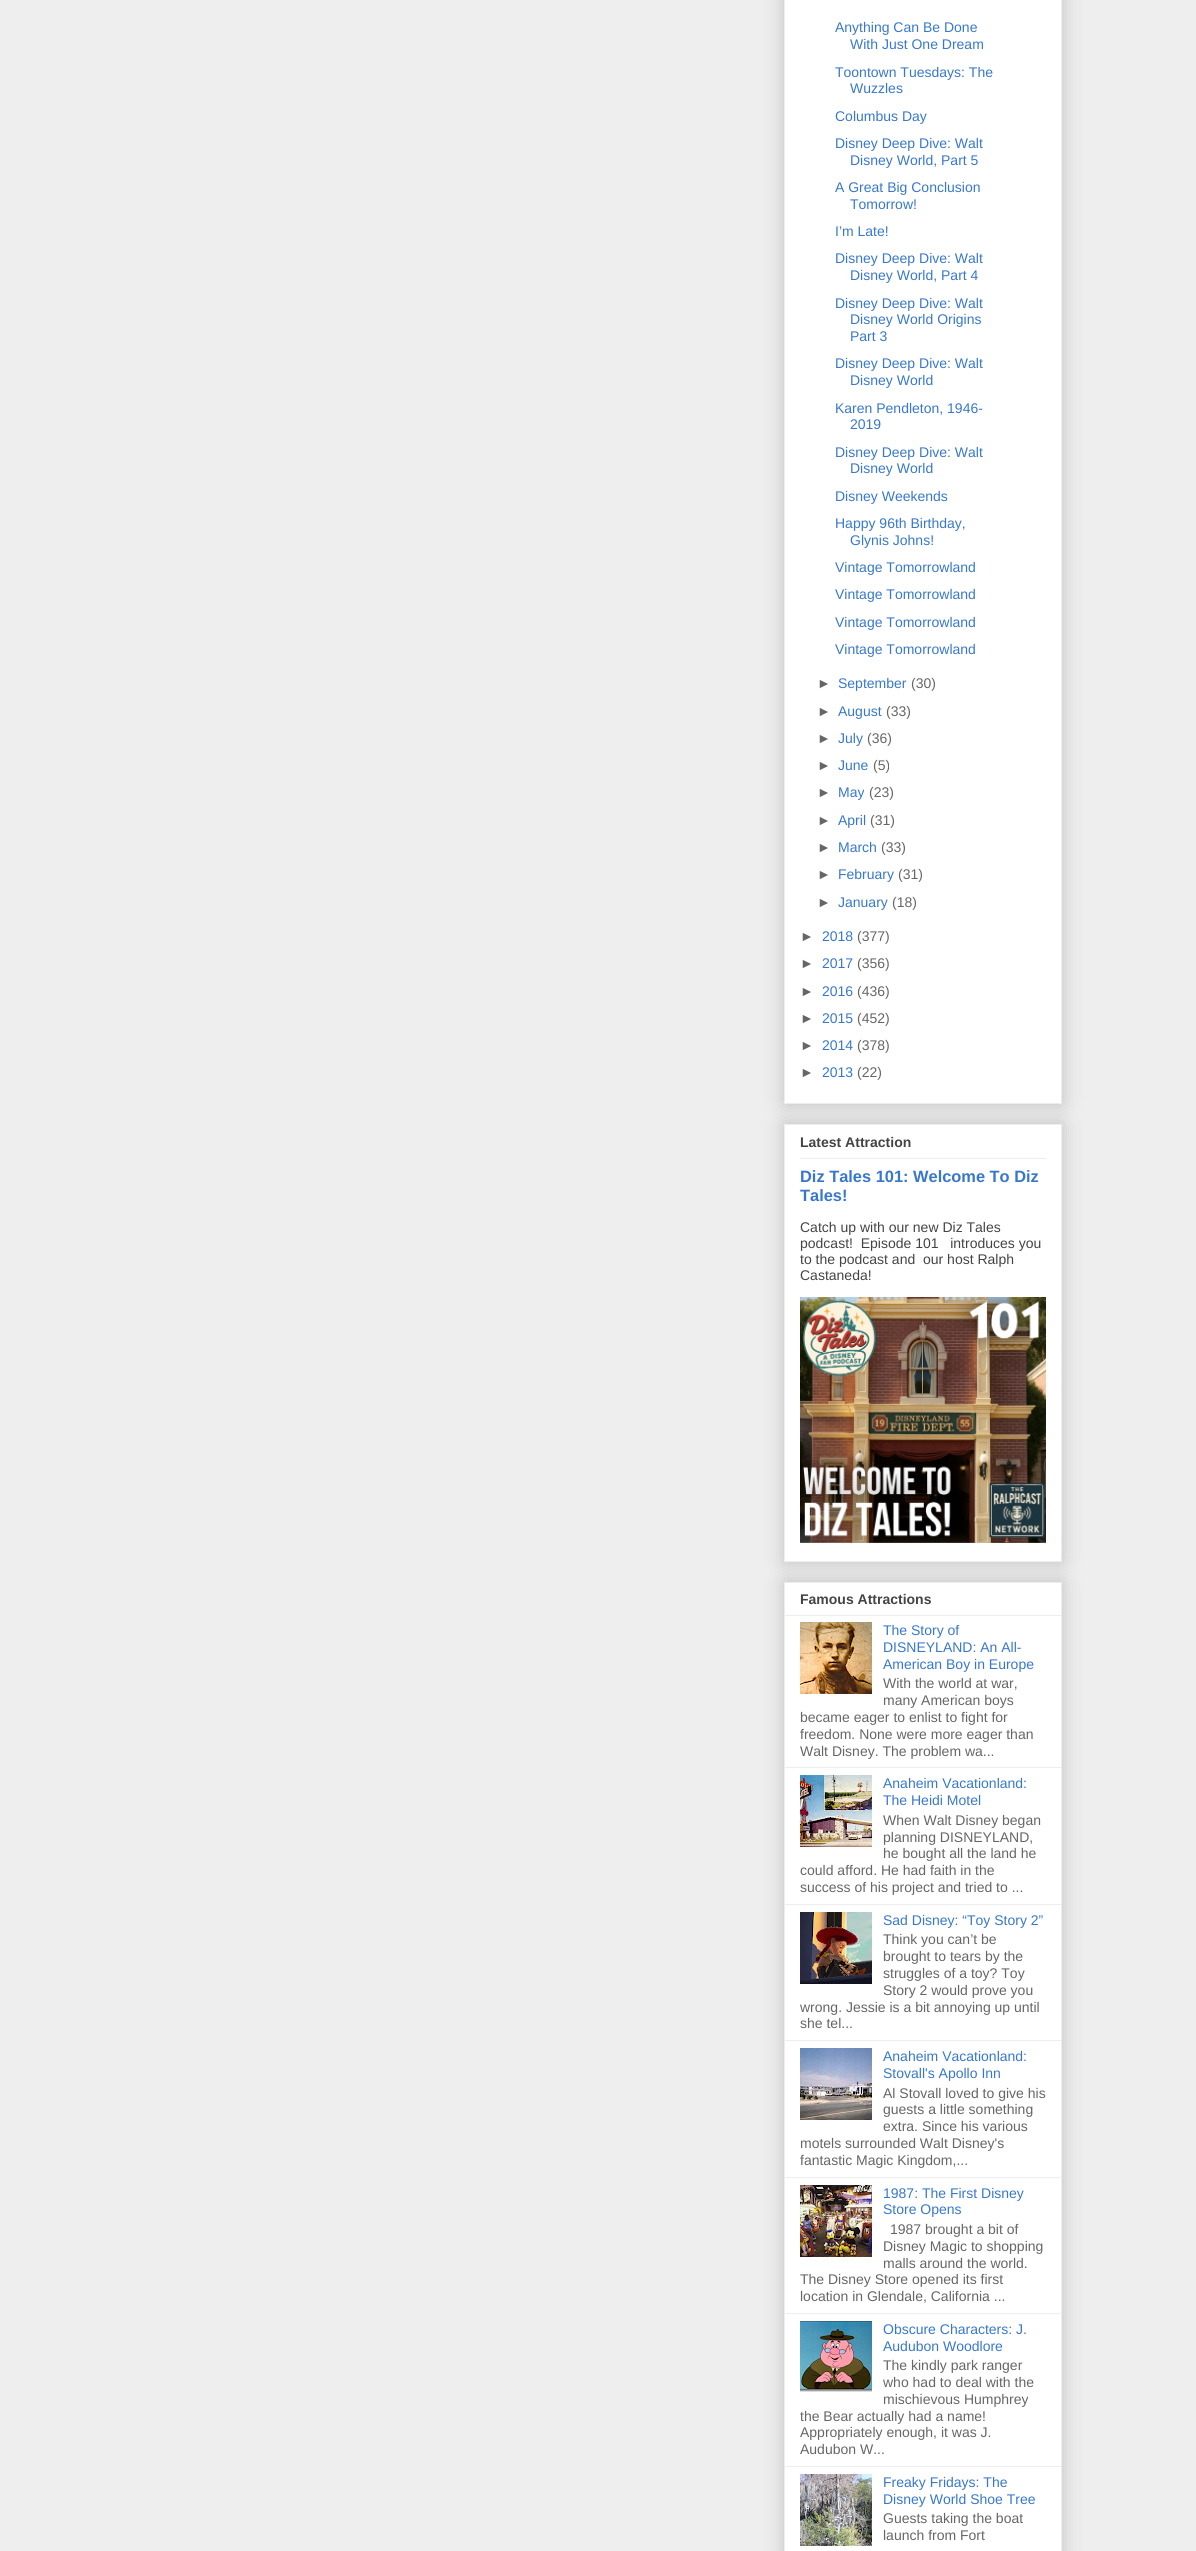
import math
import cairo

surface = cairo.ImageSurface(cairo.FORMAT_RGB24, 1196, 2551)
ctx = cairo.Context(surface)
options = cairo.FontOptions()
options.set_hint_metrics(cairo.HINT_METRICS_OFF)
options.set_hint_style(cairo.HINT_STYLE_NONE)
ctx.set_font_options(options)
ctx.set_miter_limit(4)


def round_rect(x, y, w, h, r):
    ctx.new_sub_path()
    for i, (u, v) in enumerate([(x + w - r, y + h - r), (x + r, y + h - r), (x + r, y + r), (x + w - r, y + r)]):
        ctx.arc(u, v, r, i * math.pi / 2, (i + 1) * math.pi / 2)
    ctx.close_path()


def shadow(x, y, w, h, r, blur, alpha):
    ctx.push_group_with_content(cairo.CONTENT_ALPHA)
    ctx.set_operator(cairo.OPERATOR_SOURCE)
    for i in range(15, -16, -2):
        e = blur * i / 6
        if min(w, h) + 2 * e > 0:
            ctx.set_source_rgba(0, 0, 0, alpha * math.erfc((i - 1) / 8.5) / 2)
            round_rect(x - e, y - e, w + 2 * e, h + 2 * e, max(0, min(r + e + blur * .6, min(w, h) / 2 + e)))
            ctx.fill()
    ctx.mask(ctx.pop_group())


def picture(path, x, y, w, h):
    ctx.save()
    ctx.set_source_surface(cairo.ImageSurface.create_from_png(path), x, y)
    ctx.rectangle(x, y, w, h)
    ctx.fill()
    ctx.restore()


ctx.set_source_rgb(0.933, 0.933, 0.933)
ctx.paint()
ctx.set_source_rgb(0, 0, 0)
shadow(784, -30, 278, 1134, 0, 10, 0.2)
ctx.set_source_rgb(1, 1, 1)
ctx.rectangle(784.5, -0.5, 277, 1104)
ctx.fill_preserve()
ctx.set_source_rgb(0.933, 0.933, 0.933)
ctx.set_line_width(1)
ctx.stroke()
ctx.select_font_face("Liberation Sans")
ctx.set_font_size(14)
ctx.set_source_rgb(0.216, 0.471, 0.804)
ctx.move_to(835, 32)
ctx.show_text("Anything Can Be Done")
ctx.move_to(850, 49)
ctx.show_text("With Just One Dream")
ctx.move_to(835, 77)
ctx.show_text("Toontown Tuesdays: The")
ctx.move_to(850, 93)
ctx.show_text("Wuzzles")
ctx.move_to(835, 121)
ctx.show_text("Columbus Day")
ctx.move_to(835, 148)
ctx.show_text("Disney Deep Dive: Walt")
ctx.move_to(850, 165)
ctx.show_text("Disney World, Part 5")
ctx.move_to(835, 192)
ctx.show_text("A Great Big Conclusion")
ctx.move_to(850, 209)
ctx.show_text("Tomorrow!")
ctx.move_to(835, 236)
ctx.show_text("I’m Late!")
ctx.move_to(835, 263)
ctx.show_text("Disney Deep Dive: Walt")
ctx.move_to(850, 280)
ctx.show_text("Disney World, Part 4")
ctx.move_to(835, 308)
ctx.show_text("Disney Deep Dive: Walt")
ctx.move_to(850, 324)
ctx.show_text("Disney World Origins")
ctx.move_to(850, 341)
ctx.show_text("Part 3")
ctx.move_to(835, 368)
ctx.show_text("Disney Deep Dive: Walt")
ctx.move_to(850, 385)
ctx.show_text("Disney World")
ctx.move_to(835, 413)
ctx.show_text("Karen Pendleton, 1946-")
ctx.move_to(850, 429)
ctx.show_text("2019")
ctx.move_to(835, 457)
ctx.show_text("Disney Deep Dive: Walt")
ctx.move_to(850, 473)
ctx.show_text("Disney World")
ctx.move_to(835, 501)
ctx.show_text("Disney Weekends")
ctx.move_to(835, 528)
ctx.show_text("Happy 96th Birthday,")
ctx.move_to(850, 545)
ctx.show_text("Glynis Johns!")
ctx.move_to(835, 572)
ctx.show_text("Vintage Tomorrowland")
ctx.move_to(835, 599)
ctx.show_text("Vintage Tomorrowland")
ctx.move_to(835, 627)
ctx.show_text("Vintage Tomorrowland")
ctx.move_to(835, 654)
ctx.show_text("Vintage Tomorrowland")
ctx.set_source_rgb(0.4, 0.4, 0.4)
ctx.move_to(817, 688)
ctx.show_text("►")
ctx.set_source_rgb(0.216, 0.471, 0.804)
ctx.move_to(838, 688)
ctx.show_text("September")
ctx.set_source_rgb(0.4, 0.4, 0.4)
ctx.move_to(911, 688)
ctx.show_text("(30)")
ctx.move_to(817, 716)
ctx.show_text("►")
ctx.set_source_rgb(0.216, 0.471, 0.804)
ctx.move_to(838, 716)
ctx.show_text("August")
ctx.set_source_rgb(0.4, 0.4, 0.4)
ctx.move_to(886, 716)
ctx.show_text("(33)")
ctx.move_to(817, 743)
ctx.show_text("►")
ctx.set_source_rgb(0.216, 0.471, 0.804)
ctx.move_to(838, 743)
ctx.show_text("July")
ctx.set_source_rgb(0.4, 0.4, 0.4)
ctx.move_to(867, 743)
ctx.show_text("(36)")
ctx.move_to(817, 770)
ctx.show_text("►")
ctx.set_source_rgb(0.216, 0.471, 0.804)
ctx.move_to(838, 770)
ctx.show_text("June")
ctx.set_source_rgb(0.4, 0.4, 0.4)
ctx.move_to(873, 770)
ctx.show_text("(5)")
ctx.move_to(817, 797)
ctx.show_text("►")
ctx.set_source_rgb(0.216, 0.471, 0.804)
ctx.move_to(838, 797)
ctx.show_text("May")
ctx.set_source_rgb(0.4, 0.4, 0.4)
ctx.move_to(869, 797)
ctx.show_text("(23)")
ctx.move_to(817, 825)
ctx.show_text("►")
ctx.set_source_rgb(0.216, 0.471, 0.804)
ctx.move_to(838, 825)
ctx.show_text("April")
ctx.set_source_rgb(0.4, 0.4, 0.4)
ctx.move_to(870, 825)
ctx.show_text("(31)")
ctx.move_to(817, 852)
ctx.show_text("►")
ctx.set_source_rgb(0.216, 0.471, 0.804)
ctx.move_to(838, 852)
ctx.show_text("March")
ctx.set_source_rgb(0.4, 0.4, 0.4)
ctx.move_to(881, 852)
ctx.show_text("(33)")
ctx.move_to(817, 879)
ctx.show_text("►")
ctx.set_source_rgb(0.216, 0.471, 0.804)
ctx.move_to(838, 879)
ctx.show_text("February")
ctx.set_source_rgb(0.4, 0.4, 0.4)
ctx.move_to(898, 879)
ctx.show_text("(31)")
ctx.move_to(817, 907)
ctx.show_text("►")
ctx.set_source_rgb(0.216, 0.471, 0.804)
ctx.move_to(838, 907)
ctx.show_text("January")
ctx.set_source_rgb(0.4, 0.4, 0.4)
ctx.move_to(892, 907)
ctx.show_text("(18)")
ctx.move_to(800, 941)
ctx.show_text("►")
ctx.set_source_rgb(0.216, 0.471, 0.804)
ctx.move_to(822, 941)
ctx.show_text("2018")
ctx.set_source_rgb(0.4, 0.4, 0.4)
ctx.move_to(857, 941)
ctx.show_text("(377)")
ctx.move_to(800, 968)
ctx.show_text("►")
ctx.set_source_rgb(0.216, 0.471, 0.804)
ctx.move_to(822, 968)
ctx.show_text("2017")
ctx.set_source_rgb(0.4, 0.4, 0.4)
ctx.move_to(857, 968)
ctx.show_text("(356)")
ctx.move_to(800, 996)
ctx.show_text("►")
ctx.set_source_rgb(0.216, 0.471, 0.804)
ctx.move_to(822, 996)
ctx.show_text("2016")
ctx.set_source_rgb(0.4, 0.4, 0.4)
ctx.move_to(857, 996)
ctx.show_text("(436)")
ctx.move_to(800, 1023)
ctx.show_text("►")
ctx.set_source_rgb(0.216, 0.471, 0.804)
ctx.move_to(822, 1023)
ctx.show_text("2015")
ctx.set_source_rgb(0.4, 0.4, 0.4)
ctx.move_to(857, 1023)
ctx.show_text("(452)")
ctx.move_to(800, 1050)
ctx.show_text("►")
ctx.set_source_rgb(0.216, 0.471, 0.804)
ctx.move_to(822, 1050)
ctx.show_text("2014")
ctx.set_source_rgb(0.4, 0.4, 0.4)
ctx.move_to(857, 1050)
ctx.show_text("(378)")
ctx.move_to(800, 1077)
ctx.show_text("►")
ctx.set_source_rgb(0.216, 0.471, 0.804)
ctx.move_to(822, 1077)
ctx.show_text("2013")
ctx.set_source_rgb(0.4, 0.4, 0.4)
ctx.move_to(857, 1077)
ctx.show_text("(22)")
ctx.set_source_rgb(0, 0, 0)
shadow(784, 1124, 278, 438, 0, 10, 0.2)
ctx.set_source_rgb(1, 1, 1)
ctx.rectangle(784.5, 1124.5, 277, 437)
ctx.fill_preserve()
ctx.set_source_rgb(0.933, 0.933, 0.933)
ctx.stroke()
ctx.select_font_face("Liberation Sans", cairo.FONT_SLANT_NORMAL, cairo.FONT_WEIGHT_BOLD)
ctx.set_source_rgb(0.267, 0.267, 0.267)
ctx.move_to(800, 1147)
ctx.show_text("Latest Attraction")
ctx.set_source_rgb(0.933, 0.933, 0.933)
ctx.rectangle(800, 1158, 246, 1)
ctx.fill()
ctx.set_font_size(16.4)
ctx.set_source_rgb(0.216, 0.471, 0.804)
ctx.move_to(800, 1182)
ctx.show_text("Diz Tales 101: Welcome To Diz")
ctx.move_to(800, 1201)
ctx.show_text("Tales!")
ctx.select_font_face("Liberation Sans")
ctx.set_font_size(14)
ctx.set_source_rgb(0.267, 0.267, 0.267)
ctx.move_to(800, 1232)
ctx.show_text("Catch up with our new Diz Tales")
ctx.move_to(800, 1248)
ctx.show_text("podcast!  Episode 101   introduces you")
ctx.move_to(800, 1264)
ctx.show_text("to the podcast and  our host Ralph")
ctx.move_to(800, 1280)
ctx.show_text("Castaneda!")
picture("img1.png", 800, 1297, 246, 246)
ctx.set_source_rgb(0, 0, 0)
shadow(784, 1582, 278, 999, 0, 10, 0.2)
ctx.set_source_rgb(1, 1, 1)
ctx.rectangle(784.5, 1582.5, 277, 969)
ctx.fill_preserve()
ctx.set_source_rgb(0.933, 0.933, 0.933)
ctx.stroke()
ctx.select_font_face("Liberation Sans", cairo.FONT_SLANT_NORMAL, cairo.FONT_WEIGHT_BOLD)
ctx.set_source_rgb(0.267, 0.267, 0.267)
ctx.move_to(800, 1604)
ctx.show_text("Famous Attractions")
ctx.set_source_rgb(0.933, 0.933, 0.933)
ctx.rectangle(785, 1615, 276, 1)
ctx.fill()
picture("img2.png", 800, 1622, 72, 72)
ctx.select_font_face("Liberation Sans")
ctx.set_source_rgb(0.216, 0.471, 0.804)
ctx.move_to(883, 1635)
ctx.show_text("The Story of")
ctx.move_to(883, 1652)
ctx.show_text("DISNEYLAND: An All-")
ctx.move_to(883, 1669)
ctx.show_text("American Boy in Europe")
ctx.set_source_rgb(0.4, 0.4, 0.4)
ctx.move_to(883, 1688)
ctx.show_text("With the world at war,")
ctx.move_to(883, 1705)
ctx.show_text("many American boys")
ctx.move_to(800, 1722)
ctx.show_text("became eager to enlist to fight for")
ctx.move_to(800, 1739)
ctx.show_text("freedom. None were more eager than")
ctx.move_to(800, 1756)
ctx.show_text("Walt Disney. The problem wa...")
ctx.set_source_rgb(0.933, 0.933, 0.933)
ctx.rectangle(785, 1767, 276, 1)
ctx.fill()
picture("img3.png", 800, 1775, 72, 72)
ctx.set_source_rgb(0.216, 0.471, 0.804)
ctx.move_to(883, 1788)
ctx.show_text("Anaheim Vacationland:")
ctx.move_to(883, 1805)
ctx.show_text("The Heidi Motel")
ctx.set_source_rgb(0.4, 0.4, 0.4)
ctx.move_to(883, 1825)
ctx.show_text("When Walt Disney began")
ctx.move_to(883, 1842)
ctx.show_text("planning DISNEYLAND,")
ctx.move_to(883, 1858)
ctx.show_text("he bought all the land he")
ctx.move_to(800, 1875)
ctx.show_text("could afford. He had faith in the")
ctx.move_to(800, 1892)
ctx.show_text("success of his project and tried to ...")
ctx.set_source_rgb(0.933, 0.933, 0.933)
ctx.rectangle(785, 1904, 276, 1)
ctx.fill()
picture("img4.png", 800, 1912, 72, 72)
ctx.set_source_rgb(0.216, 0.471, 0.804)
ctx.move_to(883, 1925)
ctx.show_text("Sad Disney: “Toy Story 2”")
ctx.set_source_rgb(0.4, 0.4, 0.4)
ctx.move_to(883, 1944)
ctx.show_text("Think you can’t be")
ctx.move_to(883, 1961)
ctx.show_text("brought to tears by the")
ctx.move_to(883, 1978)
ctx.show_text("struggles of a toy? Toy")
ctx.move_to(883, 1995)
ctx.show_text("Story 2 would prove you")
ctx.move_to(800, 2012)
ctx.show_text("wrong. Jessie is a bit annoying up until")
ctx.move_to(800, 2028)
ctx.show_text("she tel...")
ctx.set_source_rgb(0.933, 0.933, 0.933)
ctx.rectangle(785, 2040, 276, 1)
ctx.fill()
picture("img5.png", 800, 2048, 72, 72)
ctx.set_source_rgb(0.216, 0.471, 0.804)
ctx.move_to(883, 2061)
ctx.show_text("Anaheim Vacationland:")
ctx.move_to(883, 2078)
ctx.show_text("Stovall's Apollo Inn")
ctx.set_source_rgb(0.4, 0.4, 0.4)
ctx.move_to(883, 2098)
ctx.show_text("Al Stovall loved to give his")
ctx.move_to(883, 2114)
ctx.show_text("guests a little something")
ctx.move_to(883, 2131)
ctx.show_text("extra. Since his various")
ctx.move_to(800, 2148)
ctx.show_text("motels surrounded Walt Disney's")
ctx.move_to(800, 2165)
ctx.show_text("fantastic Magic Kingdom,...")
ctx.set_source_rgb(0.933, 0.933, 0.933)
ctx.rectangle(785, 2177, 276, 1)
ctx.fill()
picture("img6.png", 800, 2185, 72, 72)
ctx.set_source_rgb(0.216, 0.471, 0.804)
ctx.move_to(883, 2198)
ctx.show_text("1987: The First Disney")
ctx.move_to(883, 2214)
ctx.show_text("Store Opens")
ctx.set_source_rgb(0.4, 0.4, 0.4)
ctx.move_to(890, 2234)
ctx.show_text("1987 brought a bit of")
ctx.move_to(883, 2251)
ctx.show_text("Disney Magic to shopping")
ctx.move_to(883, 2268)
ctx.show_text("malls around the world.")
ctx.move_to(800, 2284)
ctx.show_text("The Disney Store opened its first")
ctx.move_to(800, 2301)
ctx.show_text("location in Glendale, California ...")
ctx.set_source_rgb(0.933, 0.933, 0.933)
ctx.rectangle(785, 2313, 276, 1)
ctx.fill()
picture("img7.png", 800, 2321, 72, 71)
ctx.set_source_rgb(0.216, 0.471, 0.804)
ctx.move_to(883, 2334)
ctx.show_text("Obscure Characters: J.")
ctx.move_to(883, 2351)
ctx.show_text("Audubon Woodlore")
ctx.set_source_rgb(0.4, 0.4, 0.4)
ctx.move_to(883, 2370)
ctx.show_text("The kindly park ranger")
ctx.move_to(883, 2387)
ctx.show_text("who had to deal with the")
ctx.move_to(883, 2404)
ctx.show_text("mischievous Humphrey")
ctx.move_to(800, 2421)
ctx.show_text("the Bear actually had a name!")
ctx.move_to(800, 2437)
ctx.show_text("Appropriately enough, it was J.")
ctx.move_to(800, 2454)
ctx.show_text("Audubon W...")
ctx.set_source_rgb(0.933, 0.933, 0.933)
ctx.rectangle(785, 2466, 276, 1)
ctx.fill()
picture("img8.png", 800, 2474, 72, 72)
ctx.set_source_rgb(0.216, 0.471, 0.804)
ctx.move_to(883, 2487)
ctx.show_text("Freaky Fridays: The")
ctx.move_to(883, 2504)
ctx.show_text("Disney World Shoe Tree")
ctx.set_source_rgb(0.4, 0.4, 0.4)
ctx.move_to(883, 2523)
ctx.show_text("Guests taking the boat")
ctx.move_to(883, 2540)
ctx.show_text("launch from Fort")
surface.write_to_png("page.png")
